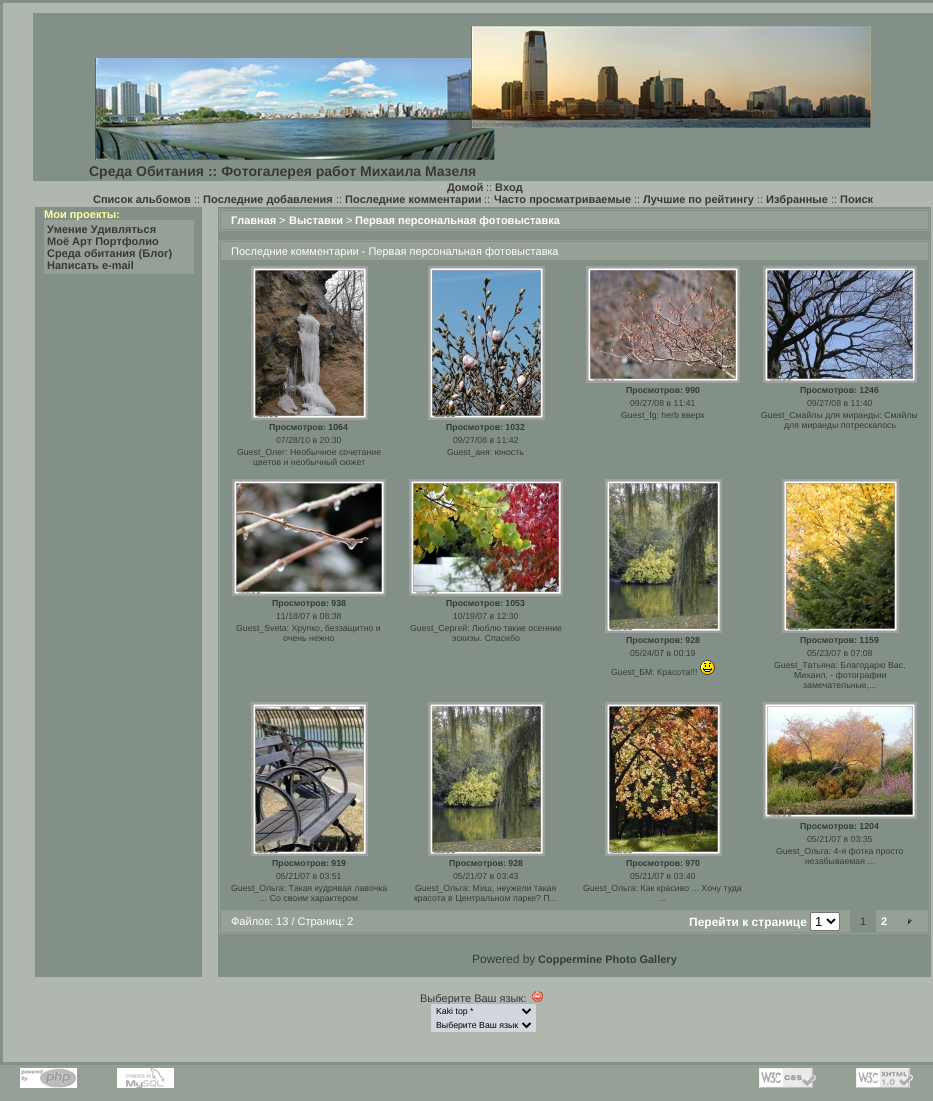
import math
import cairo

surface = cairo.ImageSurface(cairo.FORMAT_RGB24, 933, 1101)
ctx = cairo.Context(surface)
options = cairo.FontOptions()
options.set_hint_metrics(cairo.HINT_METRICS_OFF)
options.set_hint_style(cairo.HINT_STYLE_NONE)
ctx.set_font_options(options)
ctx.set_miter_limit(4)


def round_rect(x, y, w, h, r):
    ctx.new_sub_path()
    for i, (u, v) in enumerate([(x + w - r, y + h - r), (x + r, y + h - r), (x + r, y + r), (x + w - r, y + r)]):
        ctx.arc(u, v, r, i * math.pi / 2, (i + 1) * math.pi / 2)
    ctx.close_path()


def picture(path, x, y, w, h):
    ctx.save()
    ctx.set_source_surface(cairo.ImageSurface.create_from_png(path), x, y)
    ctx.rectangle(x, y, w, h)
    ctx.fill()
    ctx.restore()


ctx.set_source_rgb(0.588, 0.627, 0.588)
ctx.paint()
ctx.set_source_rgb(0.514, 0.565, 0.529)
ctx.rectangle(0, 0, 933, 1065)
ctx.fill()
ctx.set_source_rgb(0.686, 0.718, 0.686)
ctx.rectangle(3, 3, 930, 1059)
ctx.fill()
ctx.set_source_rgb(0.514, 0.565, 0.529)
ctx.rectangle(33, 13, 900, 168)
ctx.fill()
picture("img1.png", 94, 25, 777, 136)
ctx.select_font_face("Liberation Sans", cairo.FONT_SLANT_NORMAL, cairo.FONT_WEIGHT_BOLD)
ctx.set_font_size(14)
ctx.set_source_rgb(0.22, 0.22, 0.22)
ctx.move_to(89, 176)
ctx.show_text("Среда Обитания :: Фотогалерея работ Михаила Мазеля")
ctx.set_font_size(11)
ctx.move_to(447, 191)
ctx.show_text("Домой")
ctx.select_font_face("Liberation Sans")
ctx.move_to(486, 191)
ctx.show_text("::")
ctx.select_font_face("Liberation Sans", cairo.FONT_SLANT_NORMAL, cairo.FONT_WEIGHT_BOLD)
ctx.move_to(495, 191)
ctx.show_text("Вход")
ctx.move_to(93, 203)
ctx.show_text("Список альбомов")
ctx.select_font_face("Liberation Sans")
ctx.move_to(194, 203)
ctx.show_text("::")
ctx.select_font_face("Liberation Sans", cairo.FONT_SLANT_NORMAL, cairo.FONT_WEIGHT_BOLD)
ctx.move_to(203, 203)
ctx.show_text("Последние добавления")
ctx.select_font_face("Liberation Sans")
ctx.move_to(336, 203)
ctx.show_text("::")
ctx.select_font_face("Liberation Sans", cairo.FONT_SLANT_NORMAL, cairo.FONT_WEIGHT_BOLD)
ctx.move_to(345, 203)
ctx.show_text("Последние комментарии")
ctx.select_font_face("Liberation Sans")
ctx.move_to(484, 203)
ctx.show_text("::")
ctx.select_font_face("Liberation Sans", cairo.FONT_SLANT_NORMAL, cairo.FONT_WEIGHT_BOLD)
ctx.move_to(494, 203)
ctx.show_text("Часто просматриваемые")
ctx.select_font_face("Liberation Sans")
ctx.move_to(634, 203)
ctx.show_text("::")
ctx.select_font_face("Liberation Sans", cairo.FONT_SLANT_NORMAL, cairo.FONT_WEIGHT_BOLD)
ctx.move_to(643, 203)
ctx.show_text("Лучшие по рейтингу")
ctx.select_font_face("Liberation Sans")
ctx.move_to(757, 203)
ctx.show_text("::")
ctx.select_font_face("Liberation Sans", cairo.FONT_SLANT_NORMAL, cairo.FONT_WEIGHT_BOLD)
ctx.move_to(766, 203)
ctx.show_text("Избранные")
ctx.select_font_face("Liberation Sans")
ctx.move_to(831, 203)
ctx.show_text("::")
ctx.select_font_face("Liberation Sans", cairo.FONT_SLANT_NORMAL, cairo.FONT_WEIGHT_BOLD)
ctx.move_to(840, 203)
ctx.show_text("Поиск")
ctx.set_source_rgb(0.514, 0.565, 0.529)
ctx.rectangle(35, 207, 167, 770)
ctx.fill()
ctx.set_source_rgb(0.588, 0.627, 0.588)
ctx.rectangle(44, 220, 150, 54)
ctx.fill()
ctx.set_source_rgb(1, 1, 0.6)
ctx.move_to(44, 218)
ctx.show_text("Мои проекты:")
ctx.set_source_rgb(0.22, 0.22, 0.22)
ctx.move_to(47, 233)
ctx.show_text("Умение Удивляться")
ctx.move_to(47, 245)
ctx.show_text("Моё Арт Портфолио")
ctx.move_to(47, 257)
ctx.show_text("Среда обитания (Блог)")
ctx.move_to(47, 269)
ctx.show_text("Написать e-mail")
ctx.set_source_rgb(0.514, 0.565, 0.529)
ctx.rectangle(218, 207, 713, 770)
ctx.fill()
ctx.rectangle(219.5, 209.5, 710, 21)
ctx.set_source_rgb(0.588, 0.627, 0.588)
ctx.set_line_width(1)
ctx.stroke()
ctx.rectangle(221, 211, 707, 18)
ctx.fill()
ctx.set_source_rgb(1, 1, 1)
ctx.move_to(231, 224)
ctx.show_text("Главная")
ctx.select_font_face("Liberation Sans")
ctx.move_to(279, 224)
ctx.show_text(">")
ctx.select_font_face("Liberation Sans", cairo.FONT_SLANT_NORMAL, cairo.FONT_WEIGHT_BOLD)
ctx.move_to(289, 224)
ctx.show_text("Выставки")
ctx.select_font_face("Liberation Sans")
ctx.move_to(346, 224)
ctx.show_text(">")
ctx.select_font_face("Liberation Sans", cairo.FONT_SLANT_NORMAL, cairo.FONT_WEIGHT_BOLD)
ctx.move_to(355, 224)
ctx.show_text("Первая персональная фотовыставка")
ctx.rectangle(219.5, 240.5, 710, 693)
ctx.set_source_rgb(0.588, 0.627, 0.588)
ctx.stroke()
ctx.rectangle(221, 242, 707, 18)
ctx.fill()
ctx.select_font_face("Liberation Sans")
ctx.set_source_rgb(1, 1, 1)
ctx.move_to(231, 255)
ctx.show_text("Последние комментарии - Первая персональная фотовыставка")
ctx.rectangle(587, 267, 152, 115)
ctx.set_source_rgb(0.627, 0.627, 0.627)
ctx.set_line_width(2)
ctx.stroke()
picture("img2.png", 588, 268, 150, 113)
ctx.select_font_face("Liberation Sans", cairo.FONT_SLANT_NORMAL, cairo.FONT_WEIGHT_BOLD)
ctx.set_font_size(8.75)
ctx.set_source_rgb(0.22, 0.22, 0.22)
ctx.move_to(626, 393)
ctx.show_text("Просмотров: 990")
ctx.select_font_face("Liberation Sans")
ctx.move_to(630, 406)
ctx.show_text("09/27/08 в 11:41")
ctx.move_to(621, 418)
ctx.show_text("Guest_fg: herb вверх")
ctx.rectangle(764, 267, 152, 115)
ctx.set_source_rgb(0.627, 0.627, 0.627)
ctx.stroke()
picture("img3.png", 765, 268, 150, 113)
ctx.select_font_face("Liberation Sans", cairo.FONT_SLANT_NORMAL, cairo.FONT_WEIGHT_BOLD)
ctx.set_source_rgb(0.22, 0.22, 0.22)
ctx.move_to(800, 393)
ctx.show_text("Просмотров: 1246")
ctx.select_font_face("Liberation Sans")
ctx.move_to(807, 406)
ctx.show_text("09/27/08 в 11:40")
ctx.move_to(761, 418)
ctx.show_text("Guest_Смайлы для миранды: Смайлы")
ctx.move_to(784, 428)
ctx.show_text("для миранды потрескалось")
ctx.rectangle(252, 267, 115, 152)
ctx.set_source_rgb(0.627, 0.627, 0.627)
ctx.stroke()
picture("img4.png", 253, 268, 113, 150)
ctx.select_font_face("Liberation Sans", cairo.FONT_SLANT_NORMAL, cairo.FONT_WEIGHT_BOLD)
ctx.set_source_rgb(0.22, 0.22, 0.22)
ctx.move_to(269, 430)
ctx.show_text("Просмотров: 1064")
ctx.select_font_face("Liberation Sans")
ctx.move_to(276, 443)
ctx.show_text("07/28/10 в 20:30")
ctx.move_to(237, 455)
ctx.show_text("Guest_Олег: Необычное сочетание")
ctx.move_to(253, 465)
ctx.show_text("цветов и необычный сюжет")
ctx.rectangle(429, 267, 115, 152)
ctx.set_source_rgb(0.627, 0.627, 0.627)
ctx.stroke()
picture("img5.png", 430, 268, 113, 150)
ctx.select_font_face("Liberation Sans", cairo.FONT_SLANT_NORMAL, cairo.FONT_WEIGHT_BOLD)
ctx.set_source_rgb(0.22, 0.22, 0.22)
ctx.move_to(446, 430)
ctx.show_text("Просмотров: 1032")
ctx.select_font_face("Liberation Sans")
ctx.move_to(453, 443)
ctx.show_text("09/27/08 в 11:42")
ctx.move_to(447, 455)
ctx.show_text("Guest_аня: юность")
ctx.rectangle(233, 480, 152, 115)
ctx.set_source_rgb(0.627, 0.627, 0.627)
ctx.stroke()
picture("img6.png", 234, 481, 150, 113)
ctx.select_font_face("Liberation Sans", cairo.FONT_SLANT_NORMAL, cairo.FONT_WEIGHT_BOLD)
ctx.set_source_rgb(0.22, 0.22, 0.22)
ctx.move_to(272, 606)
ctx.show_text("Просмотров: 938")
ctx.select_font_face("Liberation Sans")
ctx.move_to(276, 619)
ctx.show_text("11/18/07 в 08:38")
ctx.move_to(236, 631)
ctx.show_text("Guest_Sveta: Хрупко, беззащитно и")
ctx.move_to(283, 641)
ctx.show_text("очень нежно")
ctx.rectangle(410, 480, 152, 115)
ctx.set_source_rgb(0.627, 0.627, 0.627)
ctx.stroke()
picture("img7.png", 411, 481, 150, 113)
ctx.select_font_face("Liberation Sans", cairo.FONT_SLANT_NORMAL, cairo.FONT_WEIGHT_BOLD)
ctx.set_source_rgb(0.22, 0.22, 0.22)
ctx.move_to(446, 606)
ctx.show_text("Просмотров: 1053")
ctx.select_font_face("Liberation Sans")
ctx.move_to(453, 619)
ctx.show_text("10/19/07 в 12:30")
ctx.move_to(410, 631)
ctx.show_text("Guest_Сергей: Люблю такие осенние")
ctx.move_to(452, 641)
ctx.show_text("эскизы. Спасибо")
ctx.rectangle(606, 480, 115, 152)
ctx.set_source_rgb(0.627, 0.627, 0.627)
ctx.stroke()
picture("img8.png", 607, 481, 113, 150)
ctx.select_font_face("Liberation Sans", cairo.FONT_SLANT_NORMAL, cairo.FONT_WEIGHT_BOLD)
ctx.set_source_rgb(0.22, 0.22, 0.22)
ctx.move_to(626, 643)
ctx.show_text("Просмотров: 928")
ctx.select_font_face("Liberation Sans")
ctx.move_to(630, 656)
ctx.show_text("05/24/07 в 00:19")
ctx.move_to(611, 675)
ctx.show_text("Guest_БМ: Красота!!!")
picture("img9.png", 700, 660, 15, 15)
ctx.rectangle(783, 480, 115, 152)
ctx.set_source_rgb(0.627, 0.627, 0.627)
ctx.stroke()
picture("img10.png", 784, 481, 113, 150)
ctx.select_font_face("Liberation Sans", cairo.FONT_SLANT_NORMAL, cairo.FONT_WEIGHT_BOLD)
ctx.set_source_rgb(0.22, 0.22, 0.22)
ctx.move_to(800, 643)
ctx.show_text("Просмотров: 1159")
ctx.select_font_face("Liberation Sans")
ctx.move_to(807, 656)
ctx.show_text("05/23/07 в 07:08")
ctx.move_to(774, 668)
ctx.show_text("Guest_Tатьяна: Благодарю Вас,")
ctx.move_to(794, 678)
ctx.show_text("Михаил, - фотографии")
ctx.move_to(803, 688)
ctx.show_text("замечательные,...")
ctx.rectangle(764, 703, 152, 115)
ctx.set_source_rgb(0.627, 0.627, 0.627)
ctx.stroke()
picture("img11.png", 765, 704, 150, 113)
ctx.select_font_face("Liberation Sans", cairo.FONT_SLANT_NORMAL, cairo.FONT_WEIGHT_BOLD)
ctx.set_source_rgb(0.22, 0.22, 0.22)
ctx.move_to(800, 829)
ctx.show_text("Просмотров: 1204")
ctx.select_font_face("Liberation Sans")
ctx.move_to(807, 842)
ctx.show_text("05/21/07 в 03:35")
ctx.move_to(776, 854)
ctx.show_text("Guest_Ольга: 4-я фотка просто")
ctx.move_to(805, 864)
ctx.show_text("незабываемая ...")
ctx.rectangle(252, 703, 115, 152)
ctx.set_source_rgb(0.627, 0.627, 0.627)
ctx.stroke()
picture("img12.png", 253, 704, 113, 150)
ctx.select_font_face("Liberation Sans", cairo.FONT_SLANT_NORMAL, cairo.FONT_WEIGHT_BOLD)
ctx.set_source_rgb(0.22, 0.22, 0.22)
ctx.move_to(272, 866)
ctx.show_text("Просмотров: 919")
ctx.select_font_face("Liberation Sans")
ctx.move_to(276, 879)
ctx.show_text("05/21/07 в 03:51")
ctx.move_to(231, 891)
ctx.show_text("Guest_Ольга: Такая кудрявая лавочка")
ctx.move_to(260, 901)
ctx.show_text("... Со своим характером")
ctx.rectangle(429, 703, 115, 152)
ctx.set_source_rgb(0.627, 0.627, 0.627)
ctx.stroke()
picture("img8.png", 430, 704, 113, 150)
ctx.select_font_face("Liberation Sans", cairo.FONT_SLANT_NORMAL, cairo.FONT_WEIGHT_BOLD)
ctx.set_source_rgb(0.22, 0.22, 0.22)
ctx.move_to(449, 866)
ctx.show_text("Просмотров: 928")
ctx.select_font_face("Liberation Sans")
ctx.move_to(453, 879)
ctx.show_text("05/21/07 в 03:43")
ctx.move_to(415, 891)
ctx.show_text("Guest_Ольга: Миш, неужели такая")
ctx.move_to(414, 901)
ctx.show_text("красота в Центральном парке? П...")
ctx.rectangle(606, 703, 115, 152)
ctx.set_source_rgb(0.627, 0.627, 0.627)
ctx.stroke()
picture("img13.png", 607, 704, 113, 150)
ctx.select_font_face("Liberation Sans", cairo.FONT_SLANT_NORMAL, cairo.FONT_WEIGHT_BOLD)
ctx.set_source_rgb(0.22, 0.22, 0.22)
ctx.move_to(626, 866)
ctx.show_text("Просмотров: 970")
ctx.select_font_face("Liberation Sans")
ctx.move_to(630, 879)
ctx.show_text("05/21/07 в 03:40")
ctx.move_to(583, 891)
ctx.show_text("Guest_Ольга: Как красиво ... Хочу туда")
ctx.move_to(659, 901)
ctx.show_text("...")
ctx.set_source_rgb(0.588, 0.627, 0.588)
ctx.rectangle(221, 910, 629, 22)
ctx.fill()
ctx.set_font_size(11)
ctx.set_source_rgb(1, 1, 1)
ctx.move_to(231, 925)
ctx.show_text("Файлов: 13 / Страниц: 2")
ctx.select_font_face("Liberation Sans", cairo.FONT_SLANT_NORMAL, cairo.FONT_WEIGHT_BOLD)
ctx.set_font_size(12)
ctx.move_to(689, 926)
ctx.show_text("Перейти к странице")
round_rect(810.5, 912.5, 29, 18, 1.5)
ctx.fill_preserve()
ctx.set_source_rgb(0.463, 0.463, 0.463)
ctx.set_line_width(1)
ctx.stroke()
ctx.new_path()
ctx.move_to(827, 919)
ctx.line_to(831, 923)
ctx.line_to(835, 919)
ctx.set_source_rgb(0, 0, 0)
ctx.set_line_width(2)
ctx.stroke()
ctx.select_font_face("Liberation Sans")
ctx.set_font_size(13)
ctx.move_to(815, 926)
ctx.show_text("1")
ctx.set_font_size(11)
ctx.set_source_rgb(0.22, 0.22, 0.22)
ctx.move_to(860, 925)
ctx.show_text("1")
ctx.set_source_rgb(0.588, 0.627, 0.588)
ctx.rectangle(876, 910, 52, 22)
ctx.fill()
ctx.select_font_face("Liberation Sans", cairo.FONT_SLANT_NORMAL, cairo.FONT_WEIGHT_BOLD)
ctx.set_source_rgb(1, 1, 1)
ctx.move_to(881, 925)
ctx.show_text("2")
picture("img14.png", 908, 917, 4, 7)
ctx.select_font_face("Liberation Sans")
ctx.set_font_size(12)
ctx.set_source_rgb(0.22, 0.22, 0.22)
ctx.move_to(472, 963)
ctx.show_text("Powered by")
ctx.select_font_face("Liberation Sans", cairo.FONT_SLANT_NORMAL, cairo.FONT_WEIGHT_BOLD)
ctx.set_font_size(11)
ctx.move_to(538, 963)
ctx.show_text("Coppermine Photo Gallery")
ctx.select_font_face("Liberation Sans")
ctx.move_to(420, 1002)
ctx.show_text("Выберите Ваш язык:")
picture("img15.png", 532, 991, 11, 11)
ctx.set_source_rgb(0.82, 0.843, 0.863)
ctx.rectangle(431, 1004, 105, 28)
ctx.fill()
ctx.new_path()
ctx.move_to(522.5, 1009)
ctx.line_to(526.5, 1013)
ctx.line_to(530.5, 1009)
ctx.set_source_rgb(0, 0, 0)
ctx.stroke()
ctx.set_font_size(8.75)
ctx.move_to(436, 1014)
ctx.show_text("Kaki top *")
ctx.new_path()
ctx.move_to(522.5, 1023)
ctx.line_to(526.5, 1027)
ctx.line_to(530.5, 1023)
ctx.stroke()
ctx.move_to(436, 1028)
ctx.show_text("Выберите Ваш язык")
picture("img16.png", 20, 1068, 57, 20)
picture("img17.png", 117, 1068, 57, 20)
picture("img18.png", 759, 1068, 57, 20)
picture("img19.png", 856, 1068, 57, 20)
surface.write_to_png("page.png")
